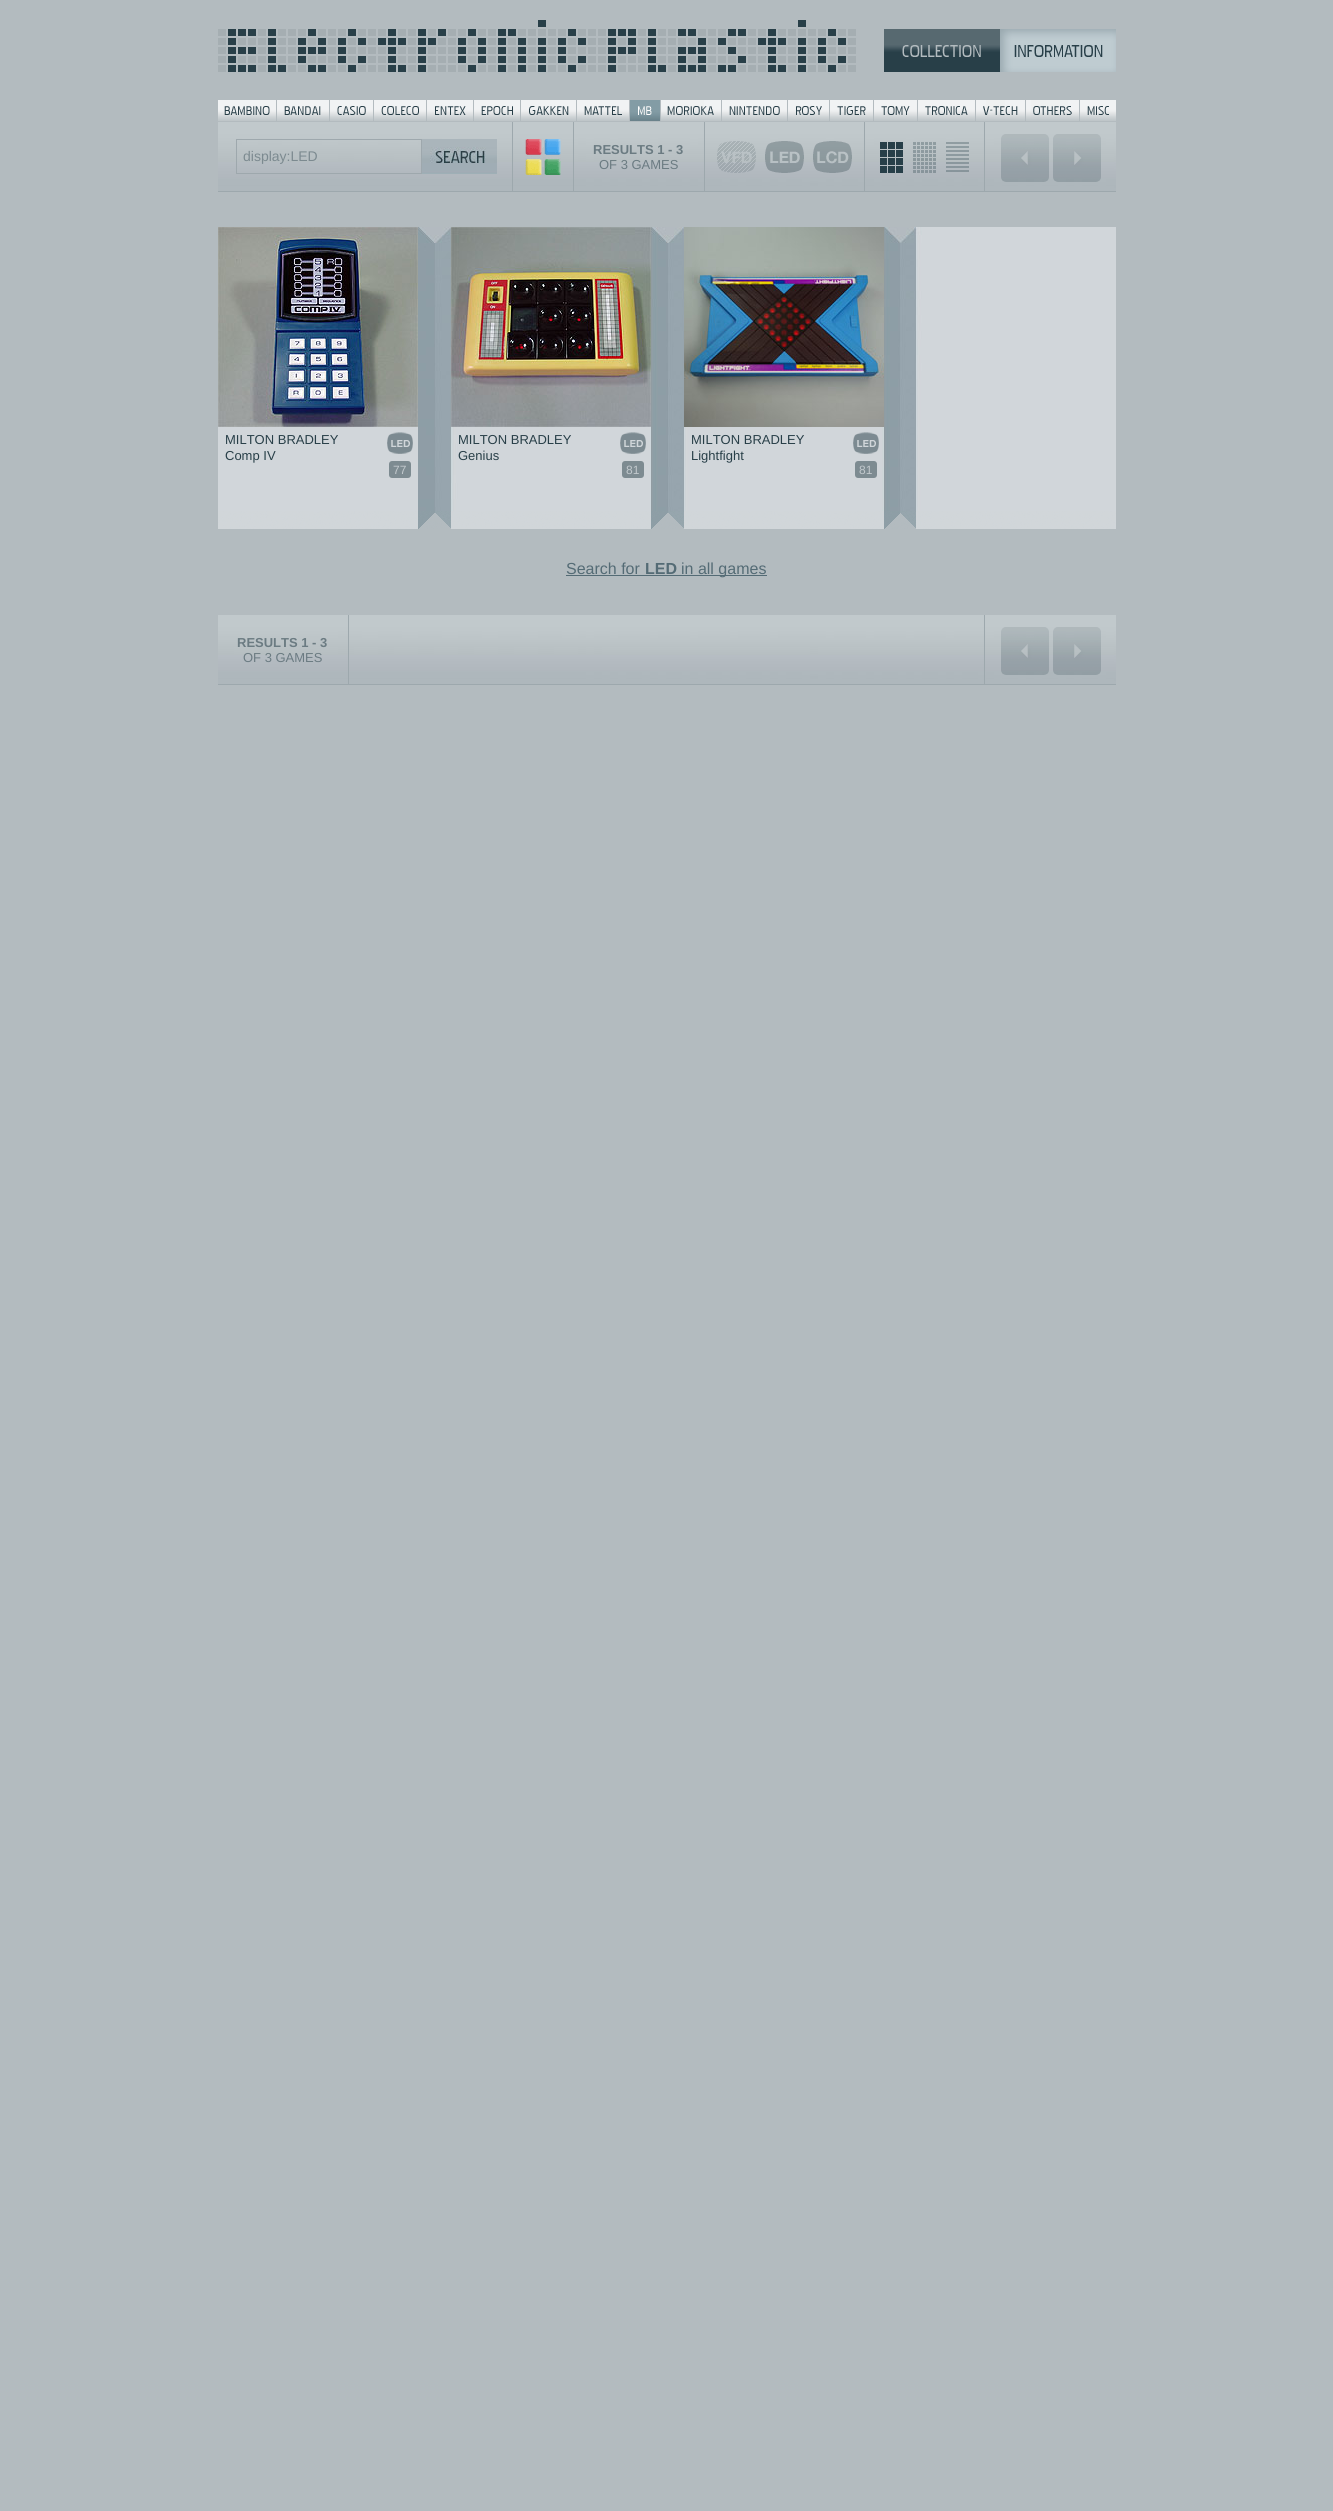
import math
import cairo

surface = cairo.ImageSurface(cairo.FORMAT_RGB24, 1333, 2511)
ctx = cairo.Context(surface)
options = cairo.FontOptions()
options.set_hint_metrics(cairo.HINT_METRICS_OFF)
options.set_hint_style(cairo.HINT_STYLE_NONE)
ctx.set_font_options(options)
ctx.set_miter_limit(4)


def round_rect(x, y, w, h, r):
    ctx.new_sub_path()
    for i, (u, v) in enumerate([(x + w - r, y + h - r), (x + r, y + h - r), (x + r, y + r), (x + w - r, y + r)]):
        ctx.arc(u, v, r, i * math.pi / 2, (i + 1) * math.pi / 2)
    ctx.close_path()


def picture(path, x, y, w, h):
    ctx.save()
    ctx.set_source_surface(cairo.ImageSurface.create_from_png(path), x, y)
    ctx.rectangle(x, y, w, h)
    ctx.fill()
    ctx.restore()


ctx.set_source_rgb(0.702, 0.733, 0.749)
ctx.paint()
picture("img1.png", 218, 20, 638, 52)
picture("img2.png", 884, 29, 116, 43)
picture("img3.png", 1000, 29, 116, 43)
picture("img4.png", 218, 100, 898, 21)
picture("img5.png", 630, 100, 30, 21)
picture("img6.png", 218, 122, 898, 69)
ctx.set_source_rgb(0.616, 0.659, 0.678)
ctx.rectangle(218, 191, 898, 1)
ctx.fill()
ctx.rectangle(512, 122, 1, 69)
ctx.fill()
ctx.rectangle(236.5, 139.5, 185, 34)
ctx.set_source_rgb(0.62, 0.659, 0.678)
ctx.set_line_width(1)
ctx.stroke()
ctx.select_font_face("Liberation Sans")
ctx.set_font_size(14)
ctx.set_source_rgb(0.486, 0.541, 0.565)
ctx.move_to(243, 161)
ctx.show_text("display:LED")
picture("img7.png", 422, 139, 75, 35)
ctx.set_source_rgb(0.616, 0.659, 0.678)
ctx.rectangle(573, 122, 1, 69)
ctx.fill()
picture("img8.png", 525, 139, 36, 36)
ctx.rectangle(704, 122, 1, 70)
ctx.fill()
ctx.select_font_face("Liberation Sans", cairo.FONT_SLANT_NORMAL, cairo.FONT_WEIGHT_BOLD)
ctx.set_font_size(13)
ctx.set_source_rgb(0.42, 0.482, 0.51)
ctx.move_to(593, 154)
ctx.show_text("RESULTS 1 - 3")
ctx.select_font_face("Liberation Sans")
ctx.move_to(599, 169)
ctx.show_text("OF 3 GAMES")
ctx.set_source_rgb(0.616, 0.659, 0.678)
ctx.rectangle(864, 122, 1, 70)
ctx.fill()
picture("img9.png", 717, 141, 39, 32)
picture("img10.png", 765, 141, 39, 32)
picture("img11.png", 813, 141, 39, 32)
picture("img12.png", 880, 142, 23, 31)
picture("img13.png", 913, 142, 23, 31)
picture("img14.png", 946, 142, 23, 30)
ctx.rectangle(984, 122, 1, 69)
ctx.fill()
picture("img15.png", 1001, 134, 48, 48)
picture("img16.png", 1053, 134, 48, 48)
picture("img17.png", 218, 227, 898, 284)
picture("img18.png", 218, 227, 200, 200)
ctx.set_source_rgb(0.157, 0.247, 0.282)
ctx.move_to(225, 444)
ctx.show_text("MILTON BRADLEY")
ctx.move_to(225, 460)
ctx.show_text("Comp IV")
picture("img19.png", 387, 432, 26, 22)
ctx.set_source_rgb(0.49, 0.545, 0.569)
round_rect(389, 461, 22, 17, 3)
ctx.fill()
ctx.set_font_size(12)
ctx.set_source_rgb(0.761, 0.788, 0.804)
ctx.move_to(393, 474)
ctx.show_text("77")
picture("img20.png", 451, 227, 200, 200)
ctx.set_font_size(13)
ctx.set_source_rgb(0.157, 0.247, 0.282)
ctx.move_to(458, 444)
ctx.show_text("MILTON BRADLEY")
ctx.move_to(458, 460)
ctx.show_text("Genius")
picture("img19.png", 620, 432, 26, 22)
ctx.set_source_rgb(0.49, 0.545, 0.569)
round_rect(622, 461, 22, 17, 3)
ctx.fill()
ctx.set_font_size(12)
ctx.set_source_rgb(0.761, 0.788, 0.804)
ctx.move_to(626, 474)
ctx.show_text("81")
picture("img21.png", 684, 227, 200, 200)
ctx.set_font_size(13)
ctx.set_source_rgb(0.157, 0.247, 0.282)
ctx.move_to(691, 444)
ctx.show_text("MILTON BRADLEY")
ctx.move_to(691, 460)
ctx.show_text("Lightfight")
picture("img19.png", 853, 432, 26, 22)
ctx.set_source_rgb(0.49, 0.545, 0.569)
round_rect(855, 461, 22, 17, 3)
ctx.fill()
ctx.set_font_size(12)
ctx.set_source_rgb(0.761, 0.788, 0.804)
ctx.move_to(859, 474)
ctx.show_text("81")
picture("img22.png", 218, 511, 898, 18)
ctx.set_font_size(16)
ctx.set_source_rgb(0.329, 0.42, 0.459)
ctx.move_to(566, 574)
ctx.show_text("Search for")
ctx.select_font_face("Liberation Sans", cairo.FONT_SLANT_NORMAL, cairo.FONT_WEIGHT_BOLD)
ctx.move_to(645, 574)
ctx.show_text("LED")
ctx.rectangle(566, 575, 201, 1)
ctx.fill()
ctx.select_font_face("Liberation Sans")
ctx.move_to(681, 574)
ctx.show_text("in all games")
picture("img6.png", 218, 615, 898, 69)
ctx.set_source_rgb(0.616, 0.659, 0.678)
ctx.rectangle(218, 684, 898, 1)
ctx.fill()
ctx.rectangle(348, 615, 1, 70)
ctx.fill()
ctx.select_font_face("Liberation Sans", cairo.FONT_SLANT_NORMAL, cairo.FONT_WEIGHT_BOLD)
ctx.set_font_size(13)
ctx.set_source_rgb(0.42, 0.482, 0.51)
ctx.move_to(237, 647)
ctx.show_text("RESULTS 1 - 3")
ctx.select_font_face("Liberation Sans")
ctx.move_to(243, 662)
ctx.show_text("OF 3 GAMES")
ctx.set_source_rgb(0.616, 0.659, 0.678)
ctx.rectangle(984, 615, 1, 69)
ctx.fill()
picture("img15.png", 1001, 627, 48, 48)
picture("img16.png", 1053, 627, 48, 48)
surface.write_to_png("page.png")
